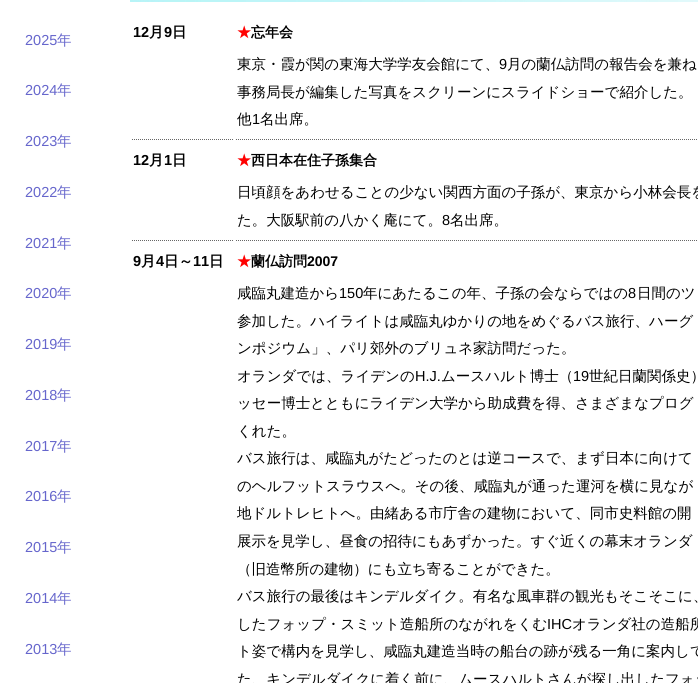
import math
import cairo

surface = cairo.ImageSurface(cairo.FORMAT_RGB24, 698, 683)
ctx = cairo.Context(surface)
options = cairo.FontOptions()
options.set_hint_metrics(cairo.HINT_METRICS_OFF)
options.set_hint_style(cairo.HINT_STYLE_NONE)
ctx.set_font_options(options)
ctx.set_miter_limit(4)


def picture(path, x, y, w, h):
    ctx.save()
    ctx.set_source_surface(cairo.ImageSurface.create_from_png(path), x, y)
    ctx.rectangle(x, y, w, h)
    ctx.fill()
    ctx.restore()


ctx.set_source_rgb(1, 1, 1)
ctx.paint()
ctx.select_font_face("Liberation Sans")
ctx.set_font_size(14.5)
ctx.set_source_rgb(0.4, 0.4, 0.8)
ctx.move_to(25, 45)
ctx.show_text("2025")
ctx.select_font_face("WenQuanYi Zen Hei Medium")
ctx.move_to(57, 45)
ctx.show_text("年")
ctx.select_font_face("Liberation Sans")
ctx.move_to(25, 95)
ctx.show_text("2024")
ctx.select_font_face("WenQuanYi Zen Hei Medium")
ctx.move_to(57, 95)
ctx.show_text("年")
ctx.select_font_face("Liberation Sans")
ctx.move_to(25, 146)
ctx.show_text("2023")
ctx.select_font_face("WenQuanYi Zen Hei Medium")
ctx.move_to(57, 146)
ctx.show_text("年")
ctx.select_font_face("Liberation Sans")
ctx.move_to(25, 197)
ctx.show_text("2022")
ctx.select_font_face("WenQuanYi Zen Hei Medium")
ctx.move_to(57, 197)
ctx.show_text("年")
ctx.select_font_face("Liberation Sans")
ctx.move_to(25, 248)
ctx.show_text("2021")
ctx.select_font_face("WenQuanYi Zen Hei Medium")
ctx.move_to(57, 248)
ctx.show_text("年")
ctx.select_font_face("Liberation Sans")
ctx.move_to(25, 298)
ctx.show_text("2020")
ctx.select_font_face("WenQuanYi Zen Hei Medium")
ctx.move_to(57, 298)
ctx.show_text("年")
ctx.select_font_face("Liberation Sans")
ctx.move_to(25, 349)
ctx.show_text("2019")
ctx.select_font_face("WenQuanYi Zen Hei Medium")
ctx.move_to(57, 349)
ctx.show_text("年")
ctx.select_font_face("Liberation Sans")
ctx.move_to(25, 400)
ctx.show_text("2018")
ctx.select_font_face("WenQuanYi Zen Hei Medium")
ctx.move_to(57, 400)
ctx.show_text("年")
ctx.select_font_face("Liberation Sans")
ctx.move_to(25, 451)
ctx.show_text("2017")
ctx.select_font_face("WenQuanYi Zen Hei Medium")
ctx.move_to(57, 451)
ctx.show_text("年")
ctx.select_font_face("Liberation Sans")
ctx.move_to(25, 501)
ctx.show_text("2016")
ctx.select_font_face("WenQuanYi Zen Hei Medium")
ctx.move_to(57, 501)
ctx.show_text("年")
ctx.select_font_face("Liberation Sans")
ctx.move_to(25, 552)
ctx.show_text("2015")
ctx.select_font_face("WenQuanYi Zen Hei Medium")
ctx.move_to(57, 552)
ctx.show_text("年")
ctx.select_font_face("Liberation Sans")
ctx.move_to(25, 603)
ctx.show_text("2014")
ctx.select_font_face("WenQuanYi Zen Hei Medium")
ctx.move_to(57, 603)
ctx.show_text("年")
ctx.select_font_face("Liberation Sans")
ctx.move_to(25, 654)
ctx.show_text("2013")
ctx.select_font_face("WenQuanYi Zen Hei Medium")
ctx.move_to(57, 654)
ctx.show_text("年")
picture("img1.png", 130, 0, 568, 2)
ctx.new_path()
ctx.move_to(132, 139.5)
ctx.line_to(234, 139.5)
ctx.set_source_rgb(0.4, 0.4, 0.4)
ctx.set_line_width(1)
ctx.set_dash([1, 1])
ctx.stroke()
ctx.select_font_face("Liberation Sans", cairo.FONT_SLANT_NORMAL, cairo.FONT_WEIGHT_BOLD)
ctx.set_source_rgb(0, 0, 0)
ctx.move_to(133, 37)
ctx.show_text("12")
ctx.select_font_face("WenQuanYi Zen Hei", cairo.FONT_SLANT_NORMAL, cairo.FONT_WEIGHT_BOLD)
ctx.move_to(149, 37)
ctx.show_text("月")
ctx.select_font_face("Liberation Sans", cairo.FONT_SLANT_NORMAL, cairo.FONT_WEIGHT_BOLD)
ctx.move_to(164, 37)
ctx.show_text("9")
ctx.select_font_face("WenQuanYi Zen Hei", cairo.FONT_SLANT_NORMAL, cairo.FONT_WEIGHT_BOLD)
ctx.move_to(172, 37)
ctx.show_text("日")
ctx.new_path()
ctx.move_to(236, 139.5)
ctx.line_to(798, 139.5)
ctx.set_source_rgb(0.4, 0.4, 0.4)
ctx.stroke()
ctx.set_font_size(14)
ctx.set_source_rgb(1, 0, 0)
ctx.move_to(237, 37)
ctx.show_text("★")
ctx.set_source_rgb(0, 0, 0)
ctx.move_to(251, 37)
ctx.show_text("忘年会")
ctx.select_font_face("WenQuanYi Zen Hei Medium")
ctx.set_font_size(14.5)
ctx.move_to(237, 69)
ctx.show_text("東京・霞が関の東海大学学友会館にて、")
ctx.select_font_face("Liberation Sans")
ctx.move_to(499, 69)
ctx.show_text("9")
ctx.select_font_face("WenQuanYi Zen Hei Medium")
ctx.move_to(507, 69)
ctx.show_text("月の蘭仏訪問の報告会を兼ね")
ctx.move_to(237, 97)
ctx.show_text("事務局長が編集した写真をスクリーンにスライドショーで紹介した。")
ctx.move_to(237, 124)
ctx.show_text("他")
ctx.select_font_face("Liberation Sans")
ctx.move_to(252, 124)
ctx.show_text("1")
ctx.select_font_face("WenQuanYi Zen Hei Medium")
ctx.move_to(260, 124)
ctx.show_text("名出席。")
ctx.new_path()
ctx.move_to(132, 240.5)
ctx.line_to(234, 240.5)
ctx.set_source_rgb(0.4, 0.4, 0.4)
ctx.stroke()
ctx.select_font_face("Liberation Sans", cairo.FONT_SLANT_NORMAL, cairo.FONT_WEIGHT_BOLD)
ctx.set_source_rgb(0, 0, 0)
ctx.move_to(133, 165)
ctx.show_text("12")
ctx.select_font_face("WenQuanYi Zen Hei", cairo.FONT_SLANT_NORMAL, cairo.FONT_WEIGHT_BOLD)
ctx.move_to(149, 165)
ctx.show_text("月")
ctx.select_font_face("Liberation Sans", cairo.FONT_SLANT_NORMAL, cairo.FONT_WEIGHT_BOLD)
ctx.move_to(164, 165)
ctx.show_text("1")
ctx.select_font_face("WenQuanYi Zen Hei", cairo.FONT_SLANT_NORMAL, cairo.FONT_WEIGHT_BOLD)
ctx.move_to(172, 165)
ctx.show_text("日")
ctx.new_path()
ctx.move_to(236, 240.5)
ctx.line_to(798, 240.5)
ctx.set_source_rgb(0.4, 0.4, 0.4)
ctx.stroke()
ctx.set_font_size(14)
ctx.set_source_rgb(1, 0, 0)
ctx.move_to(237, 165)
ctx.show_text("★")
ctx.set_source_rgb(0, 0, 0)
ctx.move_to(251, 165)
ctx.show_text("西日本在住子孫集合")
ctx.select_font_face("WenQuanYi Zen Hei Medium")
ctx.set_font_size(14.5)
ctx.move_to(237, 197)
ctx.show_text("日頃顔をあわせることの少ない関西方面の子孫が、東京から小林会長を")
ctx.move_to(237, 225)
ctx.show_text("た。大阪駅前の八かく庵にて。")
ctx.select_font_face("Liberation Sans")
ctx.move_to(442, 225)
ctx.show_text("8")
ctx.select_font_face("WenQuanYi Zen Hei Medium")
ctx.move_to(450, 225)
ctx.show_text("名出席。")
ctx.select_font_face("Liberation Sans", cairo.FONT_SLANT_NORMAL, cairo.FONT_WEIGHT_BOLD)
ctx.move_to(133, 266)
ctx.show_text("9")
ctx.select_font_face("WenQuanYi Zen Hei", cairo.FONT_SLANT_NORMAL, cairo.FONT_WEIGHT_BOLD)
ctx.move_to(141, 266)
ctx.show_text("月")
ctx.select_font_face("Liberation Sans", cairo.FONT_SLANT_NORMAL, cairo.FONT_WEIGHT_BOLD)
ctx.move_to(156, 266)
ctx.show_text("4")
ctx.select_font_face("WenQuanYi Zen Hei", cairo.FONT_SLANT_NORMAL, cairo.FONT_WEIGHT_BOLD)
ctx.move_to(164, 266)
ctx.show_text("日～")
ctx.select_font_face("Liberation Sans", cairo.FONT_SLANT_NORMAL, cairo.FONT_WEIGHT_BOLD)
ctx.move_to(193, 266)
ctx.show_text("11")
ctx.select_font_face("WenQuanYi Zen Hei", cairo.FONT_SLANT_NORMAL, cairo.FONT_WEIGHT_BOLD)
ctx.move_to(209, 266)
ctx.show_text("日")
ctx.set_font_size(14)
ctx.set_source_rgb(1, 0, 0)
ctx.move_to(237, 266)
ctx.show_text("★")
ctx.set_source_rgb(0, 0, 0)
ctx.move_to(251, 266)
ctx.show_text("蘭仏訪問")
ctx.select_font_face("Liberation Sans", cairo.FONT_SLANT_NORMAL, cairo.FONT_WEIGHT_BOLD)
ctx.move_to(307, 266)
ctx.show_text("2007")
ctx.select_font_face("WenQuanYi Zen Hei Medium")
ctx.set_font_size(14.5)
ctx.move_to(237, 298)
ctx.show_text("咸臨丸建造から")
ctx.select_font_face("Liberation Sans")
ctx.move_to(339, 298)
ctx.show_text("150")
ctx.select_font_face("WenQuanYi Zen Hei Medium")
ctx.move_to(363, 298)
ctx.show_text("年にあたるこの年、子孫の会ならではの")
ctx.select_font_face("Liberation Sans")
ctx.move_to(628, 298)
ctx.show_text("8")
ctx.select_font_face("WenQuanYi Zen Hei Medium")
ctx.move_to(637, 298)
ctx.show_text("日間のツ")
ctx.move_to(237, 326)
ctx.show_text("参加した。ハイライトは咸臨丸ゆかりの地をめぐるバス旅行、ハーグ")
ctx.move_to(237, 353)
ctx.show_text("ンポジウム」、パリ郊外のブリュネ家訪問だった。")
ctx.move_to(237, 381)
ctx.show_text("オランダでは、ライデンの")
ctx.select_font_face("Liberation Sans")
ctx.move_to(415, 381)
ctx.show_text("H.J.")
ctx.select_font_face("WenQuanYi Zen Hei Medium")
ctx.move_to(441, 381)
ctx.show_text("ムースハルト博士（")
ctx.select_font_face("Liberation Sans")
ctx.move_to(573, 381)
ctx.show_text("19")
ctx.select_font_face("WenQuanYi Zen Hei Medium")
ctx.move_to(589, 381)
ctx.show_text("世紀日蘭関係史）")
ctx.move_to(237, 408)
ctx.show_text("ッセー博士とともにライデン大学から助成費を得、さまざまなプログ")
ctx.move_to(237, 436)
ctx.show_text("くれた。")
ctx.move_to(237, 463)
ctx.show_text("バス旅行は、咸臨丸がたどったのとは逆コースで、まず日本に向けて")
ctx.move_to(237, 491)
ctx.show_text("のヘルフットスラウスへ。その後、咸臨丸が通った運河を横に見なが")
ctx.move_to(237, 518)
ctx.show_text("地ドルトレヒトへ。由緒ある市庁舎の建物において、同市史料館の開")
ctx.move_to(237, 546)
ctx.show_text("展示を見学し、昼食の招待にもあずかった。すぐ近くの幕末オランダ")
ctx.move_to(237, 574)
ctx.show_text("（旧造幣所の建物）にも立ち寄ることができた。")
ctx.move_to(237, 601)
ctx.show_text("バス旅行の最後はキンデルダイク。有名な風車群の観光もそこそこに、")
ctx.move_to(237, 629)
ctx.show_text("したフォップ・スミット造船所のながれをくむ")
ctx.select_font_face("Liberation Sans")
ctx.move_to(547, 629)
ctx.show_text("IHC")
ctx.select_font_face("WenQuanYi Zen Hei Medium")
ctx.move_to(572, 629)
ctx.show_text("オランダ社の造船所")
ctx.move_to(237, 656)
ctx.show_text("ト姿で構内を見学し、咸臨丸建造当時の船台の跡が残る一角に案内して")
ctx.move_to(237, 684)
ctx.show_text("た、キンデルダイクに着く前に、ムースハルトさんが探し出したフォッ")
surface.write_to_png("page.png")
